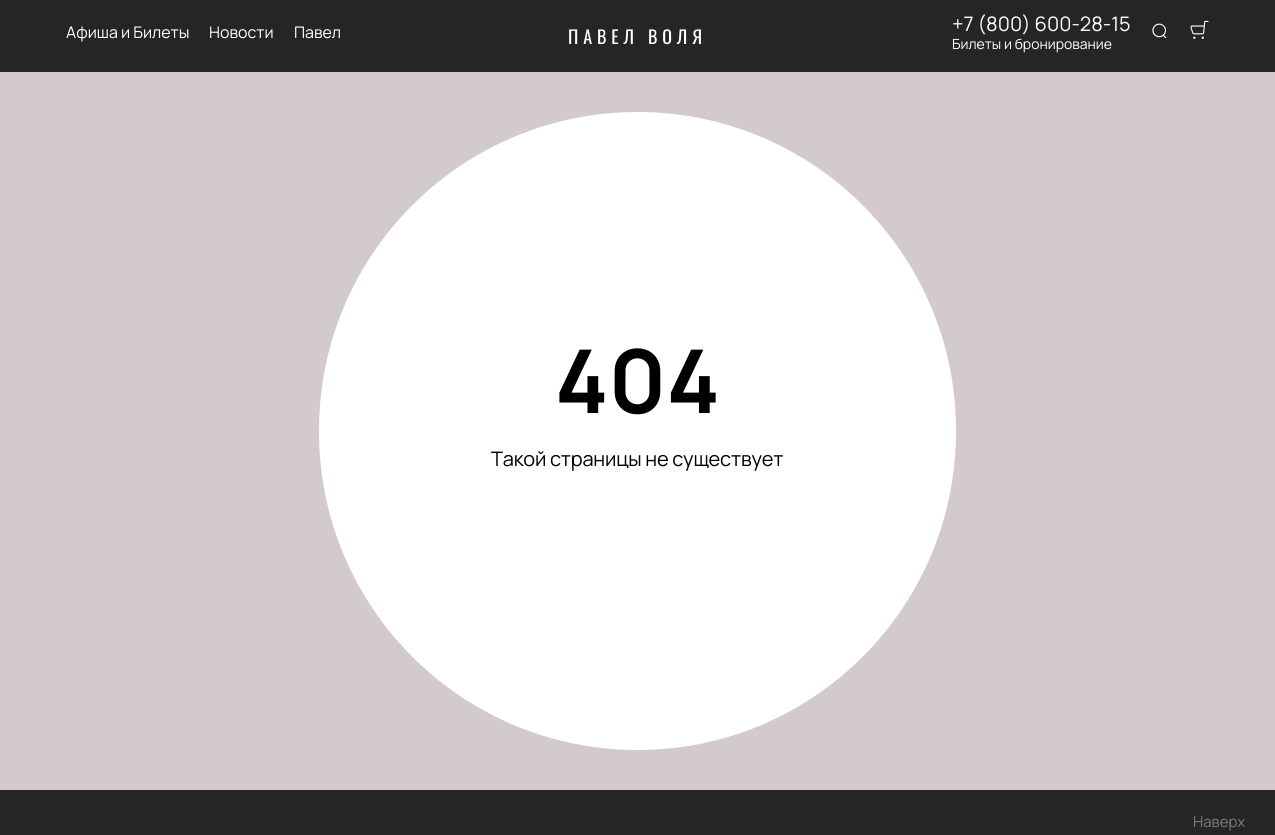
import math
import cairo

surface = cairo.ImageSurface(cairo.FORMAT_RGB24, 1275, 835)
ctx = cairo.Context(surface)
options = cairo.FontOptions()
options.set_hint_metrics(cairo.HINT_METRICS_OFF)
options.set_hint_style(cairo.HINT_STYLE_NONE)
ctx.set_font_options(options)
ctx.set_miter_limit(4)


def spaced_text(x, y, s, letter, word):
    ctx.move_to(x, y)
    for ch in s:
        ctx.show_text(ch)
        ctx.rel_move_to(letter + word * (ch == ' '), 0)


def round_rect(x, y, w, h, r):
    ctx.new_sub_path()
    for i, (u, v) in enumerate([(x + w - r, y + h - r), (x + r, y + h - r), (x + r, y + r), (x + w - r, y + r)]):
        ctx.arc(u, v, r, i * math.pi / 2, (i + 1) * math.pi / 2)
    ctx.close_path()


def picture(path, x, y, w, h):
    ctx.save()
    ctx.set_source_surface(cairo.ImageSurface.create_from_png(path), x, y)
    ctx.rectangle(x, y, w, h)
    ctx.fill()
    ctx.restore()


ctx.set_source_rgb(0.827, 0.796, 0.796)
ctx.paint()
ctx.set_source_rgb(0.145, 0.145, 0.145)
ctx.rectangle(0, 0, 1275, 72)
ctx.fill()
ctx.select_font_face("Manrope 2 ExtraLight")
ctx.set_font_size(16)
ctx.set_source_rgb(1, 1, 1)
ctx.move_to(66, 38)
ctx.show_text("Афиша и Билеты")
ctx.move_to(209, 38)
ctx.show_text("Новости")
ctx.move_to(294, 38)
ctx.show_text("Павел")
ctx.select_font_face("Oswald")
ctx.set_font_size(18)
spaced_text(568, 44, "ПАВЕЛ ВОЛЯ", 4.9, 0)
ctx.select_font_face("Manrope 2 ExtraLight")
ctx.set_font_size(20)
ctx.move_to(952, 31)
ctx.show_text("+7 (800) 600-28-15")
ctx.set_font_size(14)
ctx.move_to(952, 49)
ctx.show_text("Билеты и бронирование")
picture("img1.png", 1152, 23, 15, 16)
picture("img2.png", 1190, 20, 19, 19)
round_rect(319, 112, 637, 638, 318.5)
ctx.fill()
ctx.select_font_face("Manrope ExtraLight")
ctx.set_font_size(88)
ctx.set_source_rgb(0, 0, 0)
ctx.move_to(555, 413)
ctx.show_text("404")
ctx.select_font_face("Manrope 2 ExtraLight")
ctx.set_font_size(20)
spaced_text(491, 466, "Такой страницы не существует", -0.2, 0)
ctx.set_source_rgb(0.145, 0.145, 0.145)
ctx.rectangle(0, 790, 1275, 45)
ctx.fill()
ctx.set_font_size(15)
ctx.set_source_rgb(0.486, 0.486, 0.486)
ctx.move_to(1193, 827)
ctx.show_text("Наверх")
surface.write_to_png("page.png")
